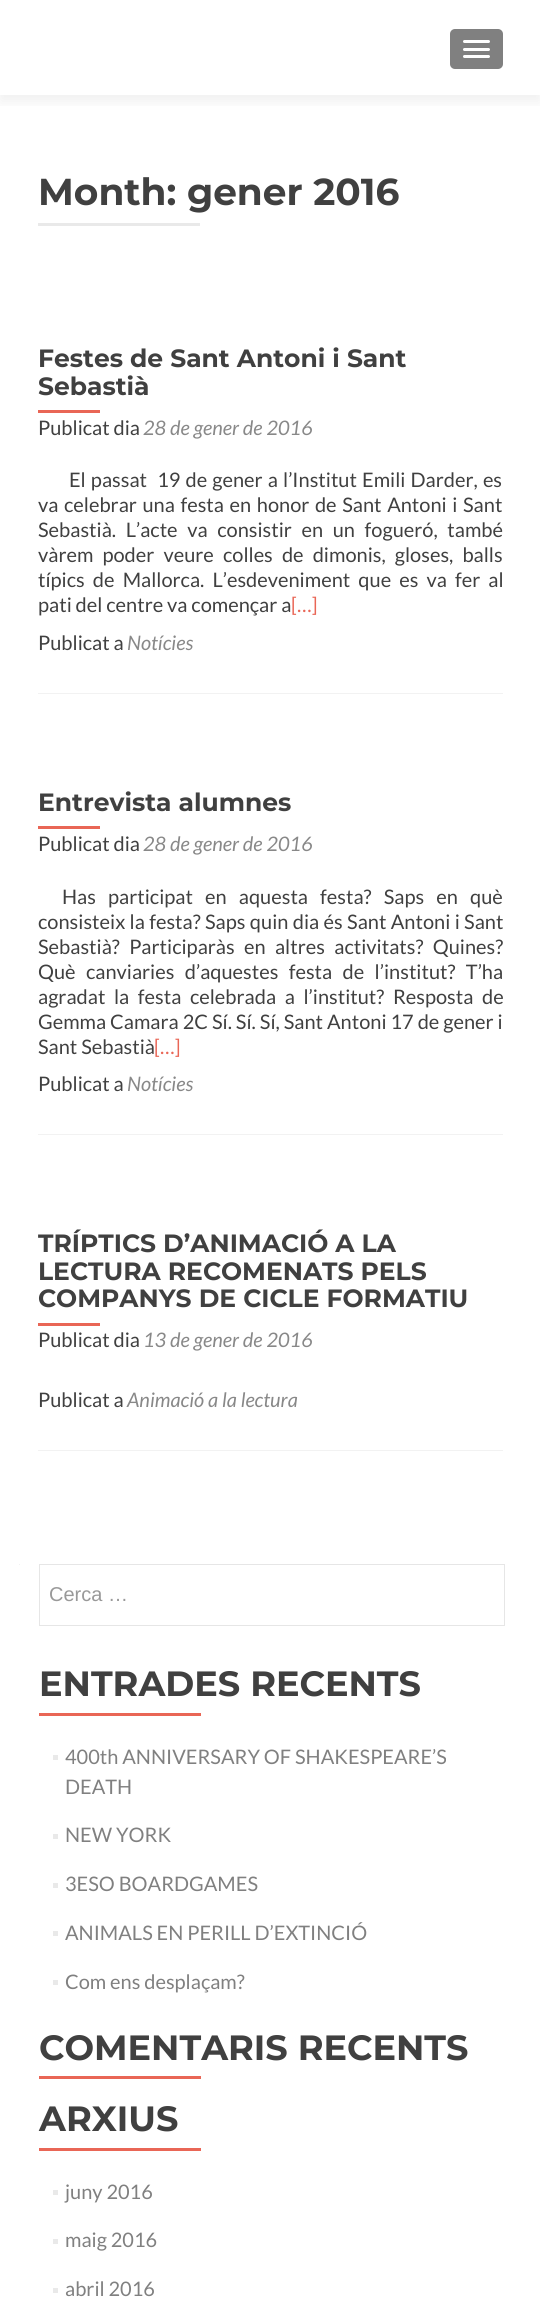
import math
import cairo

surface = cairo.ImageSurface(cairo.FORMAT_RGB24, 540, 2309)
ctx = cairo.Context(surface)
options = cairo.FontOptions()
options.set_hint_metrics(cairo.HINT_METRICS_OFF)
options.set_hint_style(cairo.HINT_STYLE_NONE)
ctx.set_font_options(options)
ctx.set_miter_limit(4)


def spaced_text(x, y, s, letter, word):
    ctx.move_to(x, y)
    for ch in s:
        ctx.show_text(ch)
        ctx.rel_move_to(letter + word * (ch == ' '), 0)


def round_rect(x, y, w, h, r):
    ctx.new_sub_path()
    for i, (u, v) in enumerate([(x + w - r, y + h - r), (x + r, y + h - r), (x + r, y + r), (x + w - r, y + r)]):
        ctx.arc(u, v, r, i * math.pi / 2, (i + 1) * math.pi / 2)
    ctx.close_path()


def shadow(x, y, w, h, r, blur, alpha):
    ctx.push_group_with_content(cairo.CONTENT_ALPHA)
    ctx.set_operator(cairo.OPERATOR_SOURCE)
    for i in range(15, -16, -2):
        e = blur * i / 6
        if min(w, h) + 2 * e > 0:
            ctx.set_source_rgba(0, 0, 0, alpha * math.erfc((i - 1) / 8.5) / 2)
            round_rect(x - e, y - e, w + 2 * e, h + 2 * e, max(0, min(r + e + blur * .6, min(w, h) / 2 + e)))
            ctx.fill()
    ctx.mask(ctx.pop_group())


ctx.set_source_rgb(1, 1, 1)
ctx.paint()
ctx.save()
ctx.rectangle(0, 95, 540, 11)
ctx.clip()
ctx.set_source_rgb(0.196, 0.196, 0.196)
shadow(0, 6, 540, 95, 0, 7, 0.08)
ctx.restore()
ctx.set_source_rgb(0.502, 0.502, 0.502)
round_rect(450, 29, 53, 40, 5)
ctx.fill()
ctx.set_source_rgb(1, 1, 1)
round_rect(463, 40, 27, 3, 1.5)
ctx.fill()
round_rect(463, 48, 27, 3, 1.5)
ctx.fill()
round_rect(463, 55, 27, 3, 1.5)
ctx.fill()
ctx.select_font_face("Montserrat Thin")
ctx.set_font_size(37.5)
ctx.set_source_rgb(0.251, 0.251, 0.251)
ctx.move_to(38, 205)
ctx.show_text("Month: gener 2016")
ctx.set_source_rgb(0.914, 0.914, 0.914)
ctx.rectangle(38, 223, 162, 3)
ctx.fill()
ctx.set_source_rgb(0.949, 0.949, 0.949)
ctx.rectangle(38, 693, 465, 1)
ctx.fill()
ctx.set_font_size(25)
ctx.set_source_rgb(0.251, 0.251, 0.251)
ctx.move_to(38, 367)
ctx.show_text("Festes de Sant Antoni i Sant")
ctx.move_to(38, 395)
ctx.show_text("Sebastià")
ctx.set_source_rgb(0.914, 0.4, 0.337)
ctx.rectangle(38, 410, 62, 3)
ctx.fill()
ctx.select_font_face("Lato")
ctx.set_font_size(20)
ctx.set_source_rgb(0.251, 0.251, 0.251)
ctx.move_to(38, 435)
ctx.show_text("Publicat dia")
ctx.select_font_face("Lato", cairo.FONT_SLANT_ITALIC)
ctx.set_source_rgb(0.533, 0.533, 0.533)
ctx.move_to(143, 435)
ctx.show_text("28 de gener de 2016")
ctx.select_font_face("Lato")
ctx.set_source_rgb(0.251, 0.251, 0.251)
spaced_text(69, 487, "El passat  19 de gener a l’Institut Emili Darder, es", 0, 1.25)
spaced_text(38, 512, "va celebrar una festa en honor de Sant Antoni i Sant", 0, 1.75)
spaced_text(38, 537, "Sebastià. L’acte va consistir en un fogueró, també", 0, 5.75)
spaced_text(38, 562, "vàrem poder veure colles de dimonis, gloses, balls", 0, 5.25)
spaced_text(38, 587, "típics de Mallorca. L’esdeveniment que es va fer al", 0, 4.25)
ctx.move_to(38, 612)
ctx.show_text("pati del centre va començar a")
ctx.set_source_rgb(0.914, 0.4, 0.337)
ctx.move_to(291, 612)
ctx.show_text("[…]")
ctx.set_source_rgb(0.251, 0.251, 0.251)
ctx.move_to(38, 650)
ctx.show_text("Publicat a")
ctx.select_font_face("Lato", cairo.FONT_SLANT_ITALIC)
ctx.set_source_rgb(0.533, 0.533, 0.533)
ctx.move_to(127, 650)
ctx.show_text("Notícies")
ctx.set_source_rgb(0.949, 0.949, 0.949)
ctx.rectangle(38, 1134, 465, 1)
ctx.fill()
ctx.select_font_face("Montserrat Thin")
ctx.set_font_size(25)
ctx.set_source_rgb(0.251, 0.251, 0.251)
ctx.move_to(38, 811)
ctx.show_text("Entrevista alumnes")
ctx.set_source_rgb(0.914, 0.4, 0.337)
ctx.rectangle(38, 826, 62, 3)
ctx.fill()
ctx.select_font_face("Lato")
ctx.set_font_size(20)
ctx.set_source_rgb(0.251, 0.251, 0.251)
ctx.move_to(38, 851)
ctx.show_text("Publicat dia")
ctx.select_font_face("Lato", cairo.FONT_SLANT_ITALIC)
ctx.set_source_rgb(0.533, 0.533, 0.533)
ctx.move_to(143, 851)
ctx.show_text("28 de gener de 2016")
ctx.select_font_face("Lato")
ctx.set_source_rgb(0.251, 0.251, 0.251)
spaced_text(62, 904, "Has participat en aquesta festa? Saps en què", 0, 8.25)
spaced_text(38, 929, "consisteix la festa? Saps quin dia és Sant Antoni i Sant", 0, 0.5)
spaced_text(38, 954, "Sebastià? Participaràs en altres activitats? Quines?", 0, 5.5)
spaced_text(38, 979, "Què canviaries d’aquestes festa de l’institut? T’ha", 0, 6.5)
spaced_text(38, 1004, "agradat la festa celebrada a l’institut? Resposta de", 0, 4.75)
spaced_text(38, 1029, "Gemma Camara 2C Sí. Sí. Sí, Sant Antoni 17 de gener i", 0, 0.1)
ctx.move_to(38, 1054)
ctx.show_text("Sant Sebastià")
ctx.set_source_rgb(0.914, 0.4, 0.337)
ctx.move_to(154, 1054)
ctx.show_text("[…]")
ctx.set_source_rgb(0.251, 0.251, 0.251)
ctx.move_to(38, 1091)
ctx.show_text("Publicat a")
ctx.select_font_face("Lato", cairo.FONT_SLANT_ITALIC)
ctx.set_source_rgb(0.533, 0.533, 0.533)
ctx.move_to(127, 1091)
ctx.show_text("Notícies")
ctx.set_source_rgb(0.949, 0.949, 0.949)
ctx.rectangle(38, 1450, 465, 1)
ctx.fill()
ctx.select_font_face("Montserrat Thin")
ctx.set_font_size(25)
ctx.set_source_rgb(0.251, 0.251, 0.251)
ctx.move_to(38, 1252)
ctx.show_text("TRÍPTICS D’ANIMACIÓ A LA")
ctx.move_to(38, 1280)
ctx.show_text("LECTURA RECOMENATS PELS")
ctx.move_to(38, 1307)
ctx.show_text("COMPANYS DE CICLE FORMATIU")
ctx.set_source_rgb(0.914, 0.4, 0.337)
ctx.rectangle(38, 1323, 62, 3)
ctx.fill()
ctx.select_font_face("Lato")
ctx.set_font_size(20)
ctx.set_source_rgb(0.251, 0.251, 0.251)
ctx.move_to(38, 1347)
ctx.show_text("Publicat dia")
ctx.select_font_face("Lato", cairo.FONT_SLANT_ITALIC)
ctx.set_source_rgb(0.533, 0.533, 0.533)
ctx.move_to(143, 1347)
ctx.show_text("13 de gener de 2016")
ctx.select_font_face("Lato")
ctx.set_source_rgb(0.251, 0.251, 0.251)
ctx.move_to(38, 1407)
ctx.show_text("Publicat a")
ctx.select_font_face("Lato", cairo.FONT_SLANT_ITALIC)
ctx.set_source_rgb(0.533, 0.533, 0.533)
ctx.move_to(127, 1407)
ctx.show_text("Animació a la lectura")
ctx.set_source_rgb(0.949, 0.949, 0.949)
ctx.rectangle(19, 1564, 1, 1)
ctx.fill()
ctx.rectangle(39.5, 1564.5, 465, 61)
ctx.set_source_rgb(0.902, 0.902, 0.902)
ctx.set_line_width(1)
ctx.stroke()
ctx.select_font_face("Liberation Sans")
ctx.set_source_rgb(0.6, 0.6, 0.6)
ctx.move_to(49, 1601)
ctx.show_text("Cerca …")
ctx.select_font_face("Montserrat Thin")
ctx.set_font_size(35.1)
ctx.set_source_rgb(0.251, 0.251, 0.251)
ctx.move_to(39, 1696)
ctx.show_text("ENTRADES RECENTS")
ctx.set_source_rgb(0.914, 0.4, 0.337)
ctx.rectangle(39, 1713, 162, 3)
ctx.fill()
ctx.set_source_rgb(0.914, 0.914, 0.914)
ctx.rectangle(53, 1755, 5, 5)
ctx.fill()
ctx.select_font_face("Lato")
ctx.set_font_size(20)
ctx.set_source_rgb(0.502, 0.502, 0.502)
ctx.move_to(65, 1764)
ctx.show_text("400th ANNIVERSARY OF SHAKESPEARE’S")
ctx.move_to(65, 1794)
ctx.show_text("DEATH")
ctx.set_source_rgb(0.914, 0.914, 0.914)
ctx.rectangle(53, 1834, 5, 5)
ctx.fill()
ctx.set_source_rgb(0.502, 0.502, 0.502)
ctx.move_to(65, 1842)
ctx.show_text("NEW YORK")
ctx.set_source_rgb(0.914, 0.914, 0.914)
ctx.rectangle(53, 1883, 5, 5)
ctx.fill()
ctx.set_source_rgb(0.502, 0.502, 0.502)
ctx.move_to(65, 1891)
ctx.show_text("3ESO BOARDGAMES")
ctx.set_source_rgb(0.914, 0.914, 0.914)
ctx.rectangle(53, 1931, 5, 5)
ctx.fill()
ctx.set_source_rgb(0.502, 0.502, 0.502)
ctx.move_to(65, 1940)
ctx.show_text("ANIMALS EN PERILL D’EXTINCIÓ")
ctx.set_source_rgb(0.914, 0.914, 0.914)
ctx.rectangle(53, 1980, 5, 5)
ctx.fill()
ctx.set_source_rgb(0.502, 0.502, 0.502)
ctx.move_to(65, 1989)
ctx.show_text("Com ens desplaçam?")
ctx.select_font_face("Montserrat Thin")
ctx.set_font_size(35.1)
ctx.set_source_rgb(0.251, 0.251, 0.251)
ctx.move_to(39, 2060)
ctx.show_text("COMENTARIS RECENTS")
ctx.set_source_rgb(0.914, 0.4, 0.337)
ctx.rectangle(39, 2076, 162, 3)
ctx.fill()
ctx.set_source_rgb(0.251, 0.251, 0.251)
ctx.move_to(39, 2131)
ctx.show_text("ARXIUS")
ctx.set_source_rgb(0.914, 0.4, 0.337)
ctx.rectangle(39, 2148, 162, 3)
ctx.fill()
ctx.set_source_rgb(0.914, 0.914, 0.914)
ctx.rectangle(53, 2190, 5, 5)
ctx.fill()
ctx.select_font_face("Lato")
ctx.set_font_size(20)
ctx.set_source_rgb(0.502, 0.502, 0.502)
ctx.move_to(65, 2199)
ctx.show_text("juny 2016")
ctx.set_source_rgb(0.914, 0.914, 0.914)
ctx.rectangle(53, 2239, 5, 5)
ctx.fill()
ctx.set_source_rgb(0.502, 0.502, 0.502)
ctx.move_to(65, 2247)
ctx.show_text("maig 2016")
ctx.set_source_rgb(0.914, 0.914, 0.914)
ctx.rectangle(53, 2288, 5, 5)
ctx.fill()
ctx.set_source_rgb(0.502, 0.502, 0.502)
ctx.move_to(65, 2296)
ctx.show_text("abril 2016")
surface.write_to_png("page.png")
